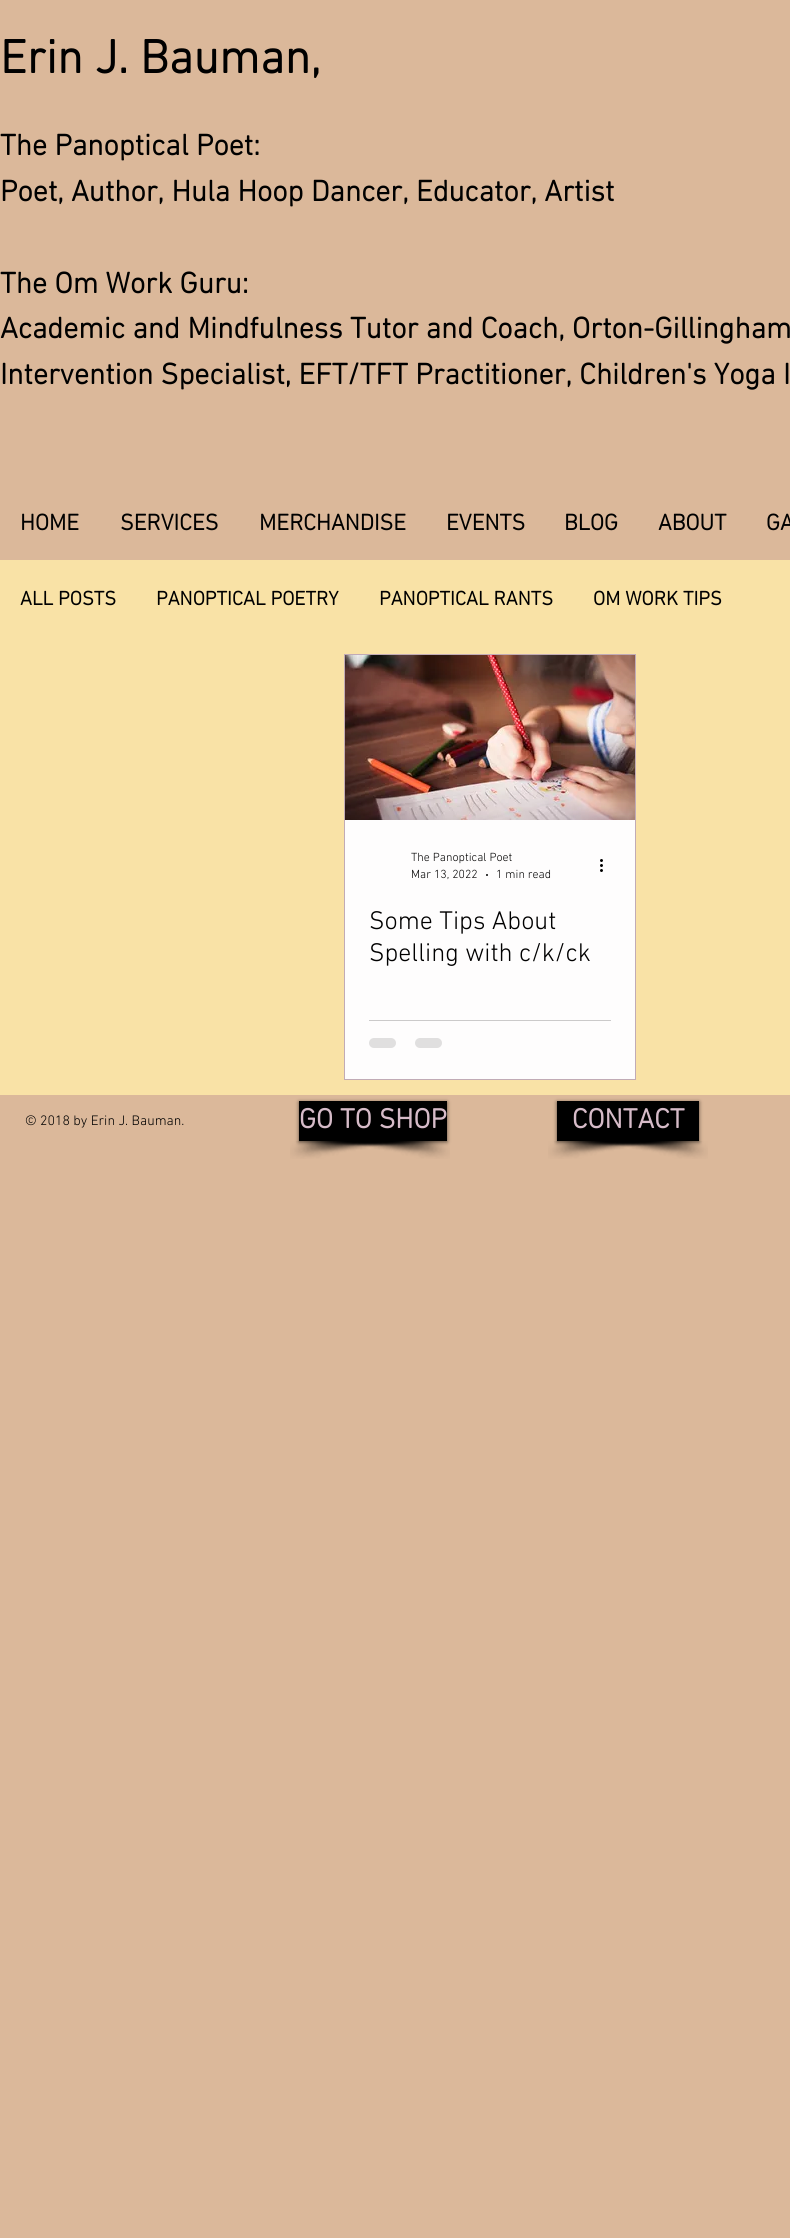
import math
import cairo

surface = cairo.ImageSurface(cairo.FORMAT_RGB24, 790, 2238)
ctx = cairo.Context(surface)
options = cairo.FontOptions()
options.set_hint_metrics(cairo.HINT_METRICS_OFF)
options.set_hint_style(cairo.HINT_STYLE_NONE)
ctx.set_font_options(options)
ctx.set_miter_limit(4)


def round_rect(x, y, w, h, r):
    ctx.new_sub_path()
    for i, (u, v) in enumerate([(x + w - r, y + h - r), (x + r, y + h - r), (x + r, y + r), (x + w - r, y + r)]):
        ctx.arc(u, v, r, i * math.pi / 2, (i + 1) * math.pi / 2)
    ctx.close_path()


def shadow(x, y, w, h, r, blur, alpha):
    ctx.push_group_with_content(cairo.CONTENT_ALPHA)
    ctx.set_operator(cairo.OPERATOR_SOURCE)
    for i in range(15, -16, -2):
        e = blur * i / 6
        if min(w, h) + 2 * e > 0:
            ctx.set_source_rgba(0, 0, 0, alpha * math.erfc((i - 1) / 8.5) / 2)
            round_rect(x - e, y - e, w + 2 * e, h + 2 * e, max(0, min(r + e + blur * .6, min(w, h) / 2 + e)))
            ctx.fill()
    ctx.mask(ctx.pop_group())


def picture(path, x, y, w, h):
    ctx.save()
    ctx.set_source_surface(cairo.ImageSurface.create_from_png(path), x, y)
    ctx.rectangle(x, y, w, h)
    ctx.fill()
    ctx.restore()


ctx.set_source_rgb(0.859, 0.722, 0.604)
ctx.paint()
ctx.select_font_face("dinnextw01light", cairo.FONT_SLANT_NORMAL, cairo.FONT_WEIGHT_BOLD)
ctx.set_font_size(48)
ctx.set_source_rgb(0, 0, 0)
ctx.move_to(0, 73)
ctx.show_text("Erin J. Bauman,")
ctx.set_font_size(30)
ctx.move_to(0, 155)
ctx.show_text("The Panoptical Poet:")
ctx.move_to(0, 201)
ctx.show_text("Poet, Author, Hula Hoop Dancer, Educator, Artist")
ctx.move_to(0, 293)
ctx.show_text("The Om Work Guru:")
ctx.move_to(0, 338)
ctx.show_text("Academic and Mindfulness Tutor and Coach, Orton-Gillingham")
ctx.move_to(0, 384)
ctx.show_text("Intervention Specialist, EFT/TFT Practitioner, Children's Yoga I")
ctx.set_font_size(23)
ctx.move_to(20, 530)
ctx.show_text("HOME")
ctx.move_to(120, 530)
ctx.show_text("SERVICES")
ctx.move_to(259, 530)
ctx.show_text("MERCHANDISE")
ctx.move_to(446, 530)
ctx.show_text("EVENTS")
ctx.move_to(564, 530)
ctx.show_text("BLOG")
ctx.move_to(658, 530)
ctx.show_text("ABOUT")
ctx.move_to(766, 530)
ctx.show_text("GA")
ctx.set_source_rgb(0.976, 0.886, 0.651)
ctx.rectangle(0, 560, 790, 535)
ctx.fill()
ctx.set_font_size(20)
ctx.set_source_rgb(0, 0, 0)
ctx.move_to(20, 605)
ctx.show_text("ALL POSTS")
ctx.move_to(156, 605)
ctx.show_text("PANOPTICAL POETRY")
ctx.move_to(379, 605)
ctx.show_text("PANOPTICAL RANTS")
ctx.move_to(593, 605)
ctx.show_text("OM WORK TIPS")
ctx.set_source_rgb(0.996, 0.992, 0.992)
ctx.rectangle(345, 820, 290, 259)
ctx.fill()
ctx.rectangle(344.5, 654.5, 291, 425)
ctx.set_source_rgb(0.757, 0.671, 0.714)
ctx.set_line_width(1)
ctx.stroke()
picture("img1.png", 345, 655, 290, 165)
ctx.select_font_face("dinnextw01light Light")
ctx.set_font_size(12)
ctx.set_source_rgb(0, 0, 0)
ctx.move_to(411, 861)
ctx.show_text("The Panoptical Poet")
ctx.move_to(411, 878)
ctx.show_text("Mar 13, 2022")
ctx.new_path()
ctx.arc(487, 875, 1, 0, 2 * math.pi)
ctx.fill()
ctx.move_to(496, 878)
ctx.show_text("1 min read")
picture("img2.png", 600, 859, 3, 13)
ctx.set_font_size(26)
ctx.move_to(369, 929)
ctx.show_text("Some Tips About")
ctx.move_to(369, 961)
ctx.show_text("Spelling with c/k/ck")
ctx.set_source_rgb(0.796, 0.792, 0.792)
ctx.rectangle(369, 1020, 242, 1)
ctx.fill()
ctx.set_source_rgb(0.878, 0.875, 0.875)
round_rect(369, 1038, 27, 10, 5)
ctx.fill()
round_rect(415, 1038, 27, 10, 5)
ctx.fill()
ctx.set_font_size(14)
ctx.set_source_rgb(0, 0, 0)
ctx.move_to(25, 1125)
ctx.show_text("© 2018 by Erin J. Bauman.")
picture("img3.png", 290, 1141, 154, 18)
picture("img4.png", 296, 1141, 154, 18)
ctx.set_source_rgb(0, 0, 0)
shadow(299, 1102, 148, 40, 0, 2, 0.6)
ctx.set_source_rgb(0, 0, 0)
ctx.rectangle(299, 1101, 148, 40)
ctx.fill()
ctx.select_font_face("dinnextw01light", cairo.FONT_SLANT_NORMAL, cairo.FONT_WEIGHT_BOLD)
ctx.set_font_size(28)
ctx.set_source_rgb(0.839, 0.733, 0.784)
ctx.move_to(299, 1128)
ctx.show_text("GO TO SHOP")
picture("img3.png", 548, 1141, 154, 18)
picture("img4.png", 554, 1141, 154, 18)
ctx.set_source_rgb(0, 0, 0)
shadow(557, 1102, 142, 40, 0, 2, 0.6)
ctx.set_source_rgb(0, 0, 0)
ctx.rectangle(557, 1101, 142, 40)
ctx.fill()
ctx.set_source_rgb(0.839, 0.733, 0.784)
ctx.move_to(572, 1128)
ctx.show_text("CONTACT")
surface.write_to_png("page.png")
